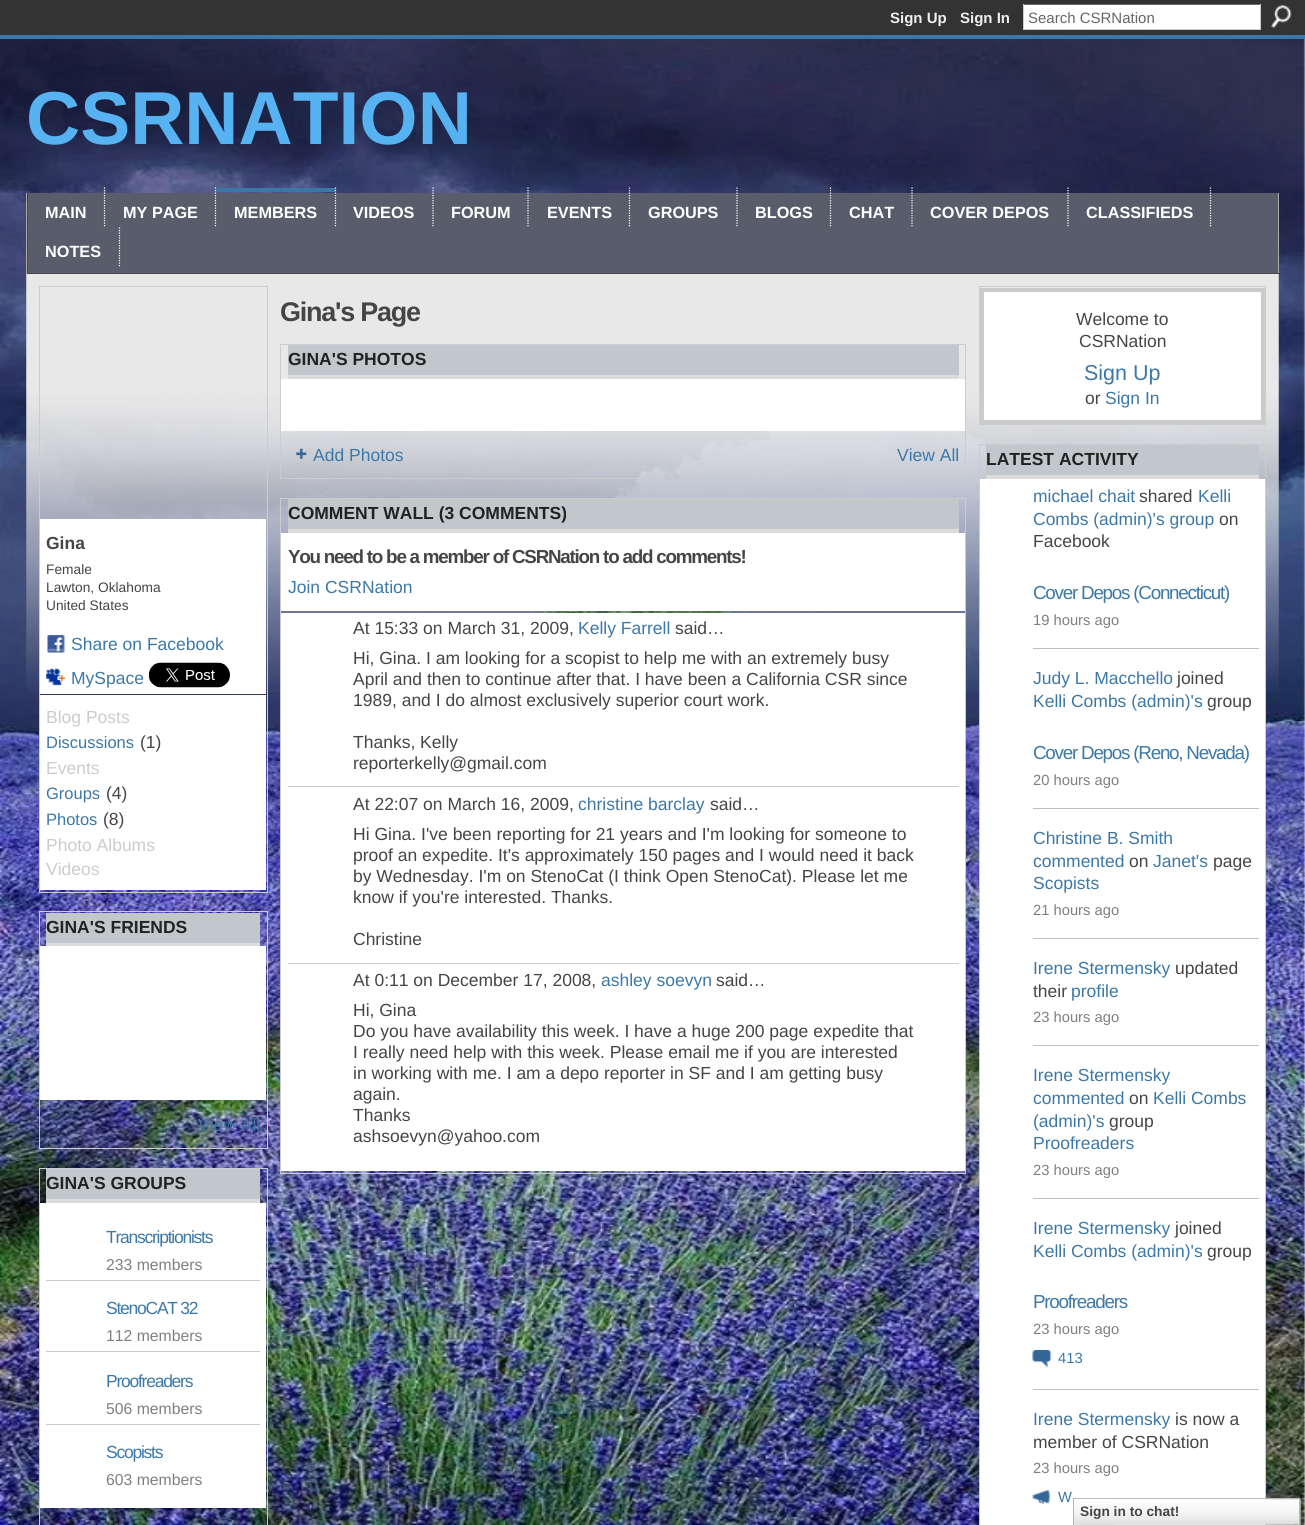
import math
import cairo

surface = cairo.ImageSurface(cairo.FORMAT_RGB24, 1305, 1525)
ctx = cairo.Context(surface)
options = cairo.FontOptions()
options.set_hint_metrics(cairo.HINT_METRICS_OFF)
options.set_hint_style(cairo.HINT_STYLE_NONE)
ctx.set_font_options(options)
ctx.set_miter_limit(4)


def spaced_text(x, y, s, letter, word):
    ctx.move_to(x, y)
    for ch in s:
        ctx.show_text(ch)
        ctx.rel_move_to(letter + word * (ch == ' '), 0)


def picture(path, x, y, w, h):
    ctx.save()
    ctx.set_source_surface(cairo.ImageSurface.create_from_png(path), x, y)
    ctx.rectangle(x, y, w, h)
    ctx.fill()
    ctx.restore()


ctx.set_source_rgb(1, 1, 1)
ctx.paint()
picture("img1.png", 0, 39, 1305, 1486)
ctx.set_source_rgb(0.2, 0.2, 0.2)
ctx.rectangle(0, 0, 1305, 35)
ctx.fill()
ctx.select_font_face("Liberation Sans", cairo.FONT_SLANT_NORMAL, cairo.FONT_WEIGHT_BOLD)
ctx.set_font_size(15)
ctx.set_source_rgb(0.933, 0.933, 0.933)
ctx.move_to(890, 23)
ctx.show_text("Sign Up")
ctx.move_to(960, 23)
ctx.show_text("Sign In")
ctx.set_source_rgb(1, 1, 1)
ctx.rectangle(1024, 5, 236, 24)
ctx.fill()
ctx.set_source_rgb(0.4, 0.4, 0.4)
ctx.rectangle(1023, 4, 238, 1)
ctx.fill()
ctx.set_source_rgb(0.8, 0.8, 0.8)
ctx.rectangle(1260, 4, 1, 26)
ctx.fill()
ctx.rectangle(1023, 29, 238, 1)
ctx.fill()
ctx.rectangle(1023, 4, 1, 26)
ctx.fill()
ctx.select_font_face("Liberation Sans")
ctx.set_source_rgb(0.4, 0.4, 0.4)
ctx.move_to(1028, 23)
ctx.show_text("Search CSRNation")
picture("img2.png", 1271, 5, 21, 23)
ctx.set_source_rgb(0.235, 0.471, 0.655)
ctx.rectangle(0, 35, 1305, 4)
ctx.fill()
ctx.select_font_face("Liberation Sans", cairo.FONT_SLANT_NORMAL, cairo.FONT_WEIGHT_BOLD)
ctx.set_font_size(75)
ctx.set_source_rgb(0.341, 0.698, 0.949)
ctx.move_to(26, 144)
ctx.show_text("CSRNATION")
ctx.set_source_rgb(0.349, 0.365, 0.42)
ctx.rectangle(28, 193, 1250, 80)
ctx.fill()
ctx.set_source_rgb(0.667, 0.667, 0.667)
ctx.rectangle(1278, 193, 1, 81)
ctx.fill()
ctx.set_source_rgb(0.067, 0.067, 0.067)
ctx.rectangle(26, 273, 1253, 1)
ctx.fill()
ctx.set_source_rgb(0.667, 0.667, 0.667)
ctx.rectangle(26, 193, 1, 81)
ctx.fill()
ctx.new_path()
ctx.move_to(104.5, 187.5)
ctx.line_to(104.5, 227.5)
ctx.set_source_rgb(1, 1, 1)
ctx.set_line_width(1.2)
ctx.set_dash([1.25, 1.25])
ctx.stroke()
ctx.set_font_size(16.25)
ctx.move_to(45, 218)
ctx.show_text("MAIN")
ctx.new_path()
ctx.move_to(215.5, 187.5)
ctx.line_to(215.5, 227.5)
ctx.stroke()
ctx.move_to(123, 218)
ctx.show_text("MY PAGE")
ctx.set_source_rgb(0.235, 0.471, 0.655)
ctx.new_path()
ctx.move_to(216, 188)
ctx.line_to(336, 188)
ctx.line_to(335, 192)
ctx.line_to(216, 192)
ctx.close_path()
ctx.fill()
ctx.new_path()
ctx.move_to(335.5, 187.5)
ctx.line_to(335.5, 227.5)
ctx.set_source_rgb(1, 1, 1)
ctx.stroke()
ctx.move_to(234, 218)
ctx.show_text("MEMBERS")
ctx.new_path()
ctx.move_to(433, 187.5)
ctx.line_to(433, 227.5)
ctx.stroke()
ctx.move_to(353, 218)
ctx.show_text("VIDEOS")
ctx.new_path()
ctx.move_to(528, 187.5)
ctx.line_to(528, 227.5)
ctx.stroke()
ctx.move_to(451, 218)
ctx.show_text("FORUM")
ctx.new_path()
ctx.move_to(629.5, 187.5)
ctx.line_to(629.5, 227.5)
ctx.stroke()
ctx.move_to(547, 218)
ctx.show_text("EVENTS")
ctx.new_path()
ctx.move_to(737, 187.5)
ctx.line_to(737, 227.5)
ctx.stroke()
ctx.move_to(648, 218)
ctx.show_text("GROUPS")
ctx.new_path()
ctx.move_to(830.5, 187.5)
ctx.line_to(830.5, 227.5)
ctx.stroke()
ctx.move_to(755, 218)
ctx.show_text("BLOGS")
ctx.new_path()
ctx.move_to(912, 187.5)
ctx.line_to(912, 227.5)
ctx.stroke()
ctx.move_to(849, 218)
ctx.show_text("CHAT")
ctx.new_path()
ctx.move_to(1068, 187.5)
ctx.line_to(1068, 227.5)
ctx.stroke()
ctx.move_to(930, 218)
ctx.show_text("COVER DEPOS")
ctx.new_path()
ctx.move_to(1210.5, 187.5)
ctx.line_to(1210.5, 227.5)
ctx.stroke()
ctx.move_to(1086, 218)
ctx.show_text("CLASSIFIEDS")
ctx.new_path()
ctx.move_to(119.5, 227.5)
ctx.line_to(119.5, 267.5)
ctx.stroke()
ctx.move_to(45, 257)
ctx.show_text("NOTES")
picture("img3.png", 26, 273, 1253, 419)
ctx.rectangle(39.5, 286.5, 228, 606)
ctx.set_source_rgb(0.8, 0.8, 0.8)
ctx.set_line_width(1)
ctx.set_dash([])
ctx.stroke()
ctx.set_source_rgb(1, 1, 1)
ctx.rectangle(40, 519, 226, 175)
ctx.fill()
ctx.set_font_size(17.5)
ctx.set_source_rgb(0.271, 0.271, 0.271)
ctx.move_to(46, 549)
ctx.show_text("Gina")
ctx.select_font_face("Liberation Sans")
ctx.set_font_size(13.75)
ctx.move_to(46, 574)
ctx.show_text("Female")
ctx.move_to(46, 592)
ctx.show_text("Lawton, Oklahoma")
ctx.move_to(46, 610)
ctx.show_text("United States")
picture("img4.png", 47, 634, 19, 19)
ctx.set_font_size(17.5)
ctx.set_source_rgb(0.235, 0.471, 0.655)
ctx.move_to(71, 650)
ctx.show_text("Share on Facebook")
picture("img5.png", 46, 668, 20, 18)
ctx.move_to(71, 684)
ctx.show_text("MySpace")
picture("img6.png", 148, 662, 82, 26)
ctx.set_source_rgb(1, 1, 1)
ctx.rectangle(40, 695, 226, 195)
ctx.fill()
ctx.set_source_rgb(0.8, 0.8, 0.8)
ctx.move_to(46, 723)
ctx.show_text("Blog Posts")
ctx.set_font_size(16.5)
ctx.set_source_rgb(0.235, 0.471, 0.655)
ctx.move_to(46, 748)
ctx.show_text("Discussions")
ctx.set_font_size(17.5)
ctx.set_source_rgb(0.271, 0.271, 0.271)
ctx.move_to(140, 748)
ctx.show_text("(1)")
ctx.set_source_rgb(0.8, 0.8, 0.8)
ctx.move_to(46, 774)
ctx.show_text("Events")
ctx.set_font_size(16.5)
ctx.set_source_rgb(0.235, 0.471, 0.655)
ctx.move_to(46, 799)
ctx.show_text("Groups")
ctx.set_font_size(17.5)
ctx.set_source_rgb(0.271, 0.271, 0.271)
ctx.move_to(106, 799)
ctx.show_text("(4)")
ctx.set_font_size(16.5)
ctx.set_source_rgb(0.235, 0.471, 0.655)
ctx.move_to(46, 825)
ctx.show_text("Photos")
ctx.set_font_size(17.5)
ctx.set_source_rgb(0.271, 0.271, 0.271)
ctx.move_to(103, 825)
ctx.show_text("(8)")
ctx.set_source_rgb(0.8, 0.8, 0.8)
ctx.move_to(46, 851)
ctx.show_text("Photo Albums")
ctx.move_to(46, 875)
ctx.show_text("Videos")
ctx.rectangle(39.5, 911.5, 228, 237)
ctx.stroke()
ctx.set_source_rgb(0.761, 0.78, 0.8)
ctx.rectangle(46, 913, 214, 30)
ctx.fill()
ctx.set_source_rgb(0.863, 0.863, 0.863)
ctx.rectangle(46, 943, 214, 3)
ctx.fill()
ctx.select_font_face("Liberation Sans", cairo.FONT_SLANT_NORMAL, cairo.FONT_WEIGHT_BOLD)
ctx.set_source_rgb(0.133, 0.133, 0.133)
ctx.move_to(46, 933)
ctx.show_text("GINA'S FRIENDS")
ctx.set_source_rgb(1, 1, 1)
ctx.rectangle(40, 946, 226, 154)
ctx.fill()
ctx.select_font_face("Liberation Sans")
ctx.set_source_rgb(0.235, 0.471, 0.655)
ctx.move_to(198, 1131)
ctx.show_text("View All")
ctx.rectangle(39.5, 1168.5, 228, 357)
ctx.set_source_rgb(0.8, 0.8, 0.8)
ctx.stroke()
ctx.set_source_rgb(0.761, 0.78, 0.8)
ctx.rectangle(46, 1169, 214, 30)
ctx.fill()
ctx.set_source_rgb(0.863, 0.863, 0.863)
ctx.rectangle(46, 1199, 214, 4)
ctx.fill()
ctx.select_font_face("Liberation Sans", cairo.FONT_SLANT_NORMAL, cairo.FONT_WEIGHT_BOLD)
ctx.set_source_rgb(0.133, 0.133, 0.133)
ctx.move_to(46, 1189)
ctx.show_text("GINA'S GROUPS")
ctx.set_source_rgb(1, 1, 1)
ctx.rectangle(40, 1203, 226, 305)
ctx.fill()
ctx.set_source_rgb(0.796, 0.796, 0.796)
ctx.rectangle(46, 1280, 214, 1)
ctx.fill()
ctx.select_font_face("Liberation Sans")
ctx.set_source_rgb(0.235, 0.471, 0.655)
spaced_text(106, 1243, "Transcriptionists", -1.25, 0)
ctx.set_font_size(15.75)
ctx.set_source_rgb(0.498, 0.498, 0.498)
ctx.move_to(106, 1270)
ctx.show_text("233 members")
ctx.set_source_rgb(0.796, 0.796, 0.796)
ctx.rectangle(46, 1351, 214, 1)
ctx.fill()
ctx.set_font_size(17.5)
ctx.set_source_rgb(0.235, 0.471, 0.655)
spaced_text(106, 1314, "StenoCAT 32", -1.25, 0)
ctx.set_font_size(15.75)
ctx.set_source_rgb(0.498, 0.498, 0.498)
ctx.move_to(106, 1341)
ctx.show_text("112 members")
ctx.set_source_rgb(0.796, 0.796, 0.796)
ctx.rectangle(46, 1424, 214, 1)
ctx.fill()
ctx.set_font_size(17.5)
ctx.set_source_rgb(0.235, 0.471, 0.655)
spaced_text(106, 1387, "Proofreaders", -1.25, 0)
ctx.set_font_size(15.75)
ctx.set_source_rgb(0.498, 0.498, 0.498)
ctx.move_to(106, 1414)
ctx.show_text("506 members")
ctx.set_font_size(17.5)
ctx.set_source_rgb(0.235, 0.471, 0.655)
spaced_text(106, 1458, "Scopists", -1.25, 0)
ctx.set_font_size(15.75)
ctx.set_source_rgb(0.498, 0.498, 0.498)
ctx.move_to(106, 1485)
ctx.show_text("603 members")
ctx.select_font_face("Liberation Sans", cairo.FONT_SLANT_NORMAL, cairo.FONT_WEIGHT_BOLD)
ctx.set_font_size(27)
ctx.set_source_rgb(0.271, 0.271, 0.271)
spaced_text(280, 321, "Gina's Page", -1.25, 0)
ctx.rectangle(280.5, 344.5, 685, 134)
ctx.set_source_rgb(0.8, 0.8, 0.8)
ctx.stroke()
ctx.set_source_rgb(0.761, 0.78, 0.8)
ctx.rectangle(288, 345, 671, 30)
ctx.fill()
ctx.set_source_rgb(0.863, 0.863, 0.863)
ctx.rectangle(288, 375, 671, 4)
ctx.fill()
ctx.set_font_size(17.5)
ctx.set_source_rgb(0.133, 0.133, 0.133)
ctx.move_to(288, 365)
ctx.show_text("GINA'S PHOTOS")
ctx.set_source_rgb(1, 1, 1)
ctx.rectangle(281, 379, 684, 52)
ctx.fill()
picture("img7.png", 296, 448, 11, 11)
ctx.select_font_face("Liberation Sans")
ctx.set_source_rgb(0.235, 0.471, 0.655)
ctx.move_to(313, 461)
ctx.show_text("Add Photos")
ctx.move_to(897, 461)
ctx.show_text("View All")
ctx.rectangle(280.5, 498.5, 685, 675)
ctx.set_source_rgb(0.8, 0.8, 0.8)
ctx.stroke()
ctx.set_source_rgb(0.761, 0.78, 0.8)
ctx.rectangle(288, 499, 671, 30)
ctx.fill()
ctx.set_source_rgb(0.863, 0.863, 0.863)
ctx.rectangle(288, 529, 671, 4)
ctx.fill()
ctx.select_font_face("Liberation Sans", cairo.FONT_SLANT_NORMAL, cairo.FONT_WEIGHT_BOLD)
ctx.set_source_rgb(0.133, 0.133, 0.133)
ctx.move_to(288, 519)
ctx.show_text("COMMENT WALL (3 COMMENTS)")
ctx.set_source_rgb(1, 1, 1)
ctx.rectangle(281, 533, 684, 78)
ctx.fill()
ctx.set_font_size(18.85)
ctx.set_source_rgb(0.271, 0.271, 0.271)
spaced_text(288, 563, "You need to be a member of CSRNation to add comments!", -1.25, 0)
ctx.select_font_face("Liberation Sans")
ctx.set_font_size(17.5)
ctx.set_source_rgb(0.235, 0.471, 0.655)
ctx.move_to(288, 593)
ctx.show_text("Join CSRNation")
ctx.set_source_rgb(1, 1, 1)
ctx.rectangle(281, 613, 684, 558)
ctx.fill()
ctx.set_source_rgb(0.796, 0.796, 0.796)
ctx.rectangle(288, 786, 671, 1)
ctx.fill()
ctx.set_source_rgb(0.271, 0.271, 0.271)
ctx.move_to(353, 634)
ctx.show_text("At 15:33 on March 31, 2009,")
ctx.set_source_rgb(0.235, 0.471, 0.655)
ctx.move_to(578, 634)
ctx.show_text("Kelly Farrell")
ctx.set_source_rgb(0.271, 0.271, 0.271)
ctx.move_to(675, 634)
ctx.show_text("said…")
ctx.move_to(353, 664)
ctx.show_text("Hi, Gina. I am looking for a scopist to help me with an extremely busy")
ctx.move_to(353, 685)
ctx.show_text("April and then to continue after that. I have been a California CSR since")
ctx.move_to(353, 706)
ctx.show_text("1989, and I do almost exclusively superior court work.")
ctx.move_to(353, 748)
ctx.show_text("Thanks, Kelly")
ctx.move_to(353, 769)
ctx.show_text("reporterkelly@gmail.com")
ctx.set_source_rgb(0.796, 0.796, 0.796)
ctx.rectangle(288, 963, 671, 1)
ctx.fill()
ctx.set_source_rgb(0.271, 0.271, 0.271)
ctx.move_to(353, 810)
ctx.show_text("At 22:07 on March 16, 2009,")
ctx.set_source_rgb(0.235, 0.471, 0.655)
ctx.move_to(578, 810)
ctx.show_text("christine barclay")
ctx.set_source_rgb(0.271, 0.271, 0.271)
ctx.move_to(710, 810)
ctx.show_text("said…")
ctx.move_to(353, 840)
ctx.show_text("Hi Gina. I've been reporting for 21 years and I'm looking for someone to")
ctx.move_to(353, 861)
ctx.show_text("proof an expedite. It's approximately 150 pages and I would need it back")
ctx.move_to(353, 882)
ctx.show_text("by Wednesday. I'm on StenoCat (I think Open StenoCat). Please let me")
ctx.move_to(353, 903)
ctx.show_text("know if you're interested. Thanks.")
ctx.move_to(353, 945)
ctx.show_text("Christine")
ctx.move_to(353, 986)
ctx.show_text("At 0:11 on December 17, 2008,")
ctx.set_source_rgb(0.235, 0.471, 0.655)
ctx.move_to(601, 986)
ctx.show_text("ashley soevyn")
ctx.set_source_rgb(0.271, 0.271, 0.271)
ctx.move_to(716, 986)
ctx.show_text("said…")
ctx.move_to(353, 1016)
ctx.show_text("Hi, Gina")
ctx.move_to(353, 1037)
ctx.show_text("Do you have availability this week. I have a huge 200 page expedite that")
ctx.move_to(353, 1058)
ctx.show_text("I really need help with this week. Please email me if you are interested")
ctx.move_to(353, 1079)
ctx.show_text("in working with me. I am a depo reporter in SF and I am getting busy")
ctx.move_to(353, 1100)
ctx.show_text("again.")
ctx.move_to(353, 1121)
ctx.show_text("Thanks")
ctx.move_to(353, 1142)
ctx.show_text("ashsoevyn@yahoo.com")
ctx.rectangle(979.5, 286.5, 286, 138)
ctx.set_source_rgb(0.8, 0.8, 0.8)
ctx.stroke()
ctx.set_source_rgb(1, 1, 1)
ctx.rectangle(982, 290, 281, 132)
ctx.fill_preserve()
ctx.set_source_rgb(0.796, 0.796, 0.796)
ctx.set_line_width(4)
ctx.stroke()
ctx.set_source_rgb(0.271, 0.271, 0.271)
ctx.move_to(1076, 325)
ctx.show_text("Welcome to")
ctx.move_to(1079, 347)
ctx.show_text("CSRNation")
ctx.set_font_size(21.5)
ctx.set_source_rgb(0.235, 0.471, 0.655)
ctx.move_to(1084, 380)
ctx.show_text("Sign Up")
ctx.set_font_size(17.5)
ctx.set_source_rgb(0.271, 0.271, 0.271)
ctx.move_to(1085, 404)
ctx.show_text("or")
ctx.set_source_rgb(0.235, 0.471, 0.655)
ctx.move_to(1105, 404)
ctx.show_text("Sign In")
ctx.rectangle(979.5, 444.5, 286, 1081)
ctx.set_source_rgb(0.8, 0.8, 0.8)
ctx.set_line_width(1)
ctx.stroke()
ctx.set_source_rgb(0.761, 0.78, 0.8)
ctx.rectangle(986, 445, 273, 30)
ctx.fill()
ctx.set_source_rgb(0.863, 0.863, 0.863)
ctx.rectangle(986, 475, 273, 4)
ctx.fill()
ctx.select_font_face("Liberation Sans", cairo.FONT_SLANT_NORMAL, cairo.FONT_WEIGHT_BOLD)
ctx.set_source_rgb(0.133, 0.133, 0.133)
ctx.move_to(986, 465)
ctx.show_text("LATEST ACTIVITY")
ctx.set_source_rgb(1, 1, 1)
ctx.rectangle(980, 479, 285, 1046)
ctx.fill()
ctx.set_source_rgb(0.753, 0.753, 0.753)
ctx.rectangle(1033, 648, 226, 1)
ctx.fill()
ctx.select_font_face("Liberation Sans")
ctx.set_source_rgb(0.235, 0.471, 0.655)
ctx.move_to(1033, 502)
ctx.show_text("michael chait")
ctx.set_source_rgb(0.271, 0.271, 0.271)
ctx.move_to(1139, 502)
ctx.show_text("shared")
ctx.set_source_rgb(0.235, 0.471, 0.655)
ctx.move_to(1198, 502)
ctx.show_text("Kelli")
ctx.move_to(1033, 525)
ctx.show_text("Combs (admin)'s group")
ctx.set_source_rgb(0.271, 0.271, 0.271)
ctx.move_to(1219, 525)
ctx.show_text("on")
ctx.move_to(1033, 547)
ctx.show_text("Facebook")
ctx.set_font_size(18.85)
ctx.set_source_rgb(0.235, 0.471, 0.655)
spaced_text(1033, 599, "Cover Depos (Connecticut)", -1.25, 0)
ctx.set_font_size(14.75)
ctx.set_source_rgb(0.498, 0.498, 0.498)
ctx.move_to(1033, 625)
ctx.show_text("19 hours ago")
ctx.set_source_rgb(0.753, 0.753, 0.753)
ctx.rectangle(1033, 808, 226, 1)
ctx.fill()
ctx.set_font_size(17.5)
ctx.set_source_rgb(0.235, 0.471, 0.655)
ctx.move_to(1033, 684)
ctx.show_text("Judy L. Macchello")
ctx.set_source_rgb(0.271, 0.271, 0.271)
ctx.move_to(1177, 684)
ctx.show_text("joined")
ctx.set_source_rgb(0.235, 0.471, 0.655)
ctx.move_to(1033, 707)
ctx.show_text("Kelli Combs (admin)'s")
ctx.set_source_rgb(0.271, 0.271, 0.271)
ctx.move_to(1207, 707)
ctx.show_text("group")
ctx.set_font_size(18.85)
ctx.set_source_rgb(0.235, 0.471, 0.655)
spaced_text(1033, 759, "Cover Depos (Reno, Nevada)", -1.25, 0)
ctx.set_font_size(14.75)
ctx.set_source_rgb(0.498, 0.498, 0.498)
ctx.move_to(1033, 785)
ctx.show_text("20 hours ago")
ctx.set_source_rgb(0.753, 0.753, 0.753)
ctx.rectangle(1033, 938, 226, 1)
ctx.fill()
ctx.set_font_size(17.5)
ctx.set_source_rgb(0.235, 0.471, 0.655)
ctx.move_to(1033, 844)
ctx.show_text("Christine B. Smith")
ctx.move_to(1033, 867)
ctx.show_text("commented")
ctx.set_source_rgb(0.271, 0.271, 0.271)
ctx.move_to(1129, 867)
ctx.show_text("on")
ctx.set_source_rgb(0.235, 0.471, 0.655)
ctx.move_to(1153, 867)
ctx.show_text("Janet's")
ctx.set_source_rgb(0.271, 0.271, 0.271)
ctx.move_to(1213, 867)
ctx.show_text("page")
ctx.set_source_rgb(0.235, 0.471, 0.655)
ctx.move_to(1033, 889)
ctx.show_text("Scopists")
ctx.set_font_size(14.75)
ctx.set_source_rgb(0.498, 0.498, 0.498)
ctx.move_to(1033, 915)
ctx.show_text("21 hours ago")
ctx.set_source_rgb(0.753, 0.753, 0.753)
ctx.rectangle(1033, 1045, 226, 1)
ctx.fill()
ctx.set_font_size(17.5)
ctx.set_source_rgb(0.235, 0.471, 0.655)
ctx.move_to(1033, 974)
ctx.show_text("Irene Stermensky")
ctx.set_source_rgb(0.271, 0.271, 0.271)
ctx.move_to(1175, 974)
ctx.show_text("updated")
ctx.move_to(1033, 997)
ctx.show_text("their")
ctx.set_source_rgb(0.235, 0.471, 0.655)
ctx.move_to(1071, 997)
ctx.show_text("profile")
ctx.set_font_size(14.75)
ctx.set_source_rgb(0.498, 0.498, 0.498)
ctx.move_to(1033, 1022)
ctx.show_text("23 hours ago")
ctx.set_source_rgb(0.753, 0.753, 0.753)
ctx.rectangle(1033, 1198, 226, 1)
ctx.fill()
ctx.set_font_size(17.5)
ctx.set_source_rgb(0.235, 0.471, 0.655)
ctx.move_to(1033, 1081)
ctx.show_text("Irene Stermensky")
ctx.move_to(1033, 1104)
ctx.show_text("commented")
ctx.set_source_rgb(0.271, 0.271, 0.271)
ctx.move_to(1129, 1104)
ctx.show_text("on")
ctx.set_source_rgb(0.235, 0.471, 0.655)
ctx.move_to(1153, 1104)
ctx.show_text("Kelli Combs")
ctx.move_to(1033, 1127)
ctx.show_text("(admin)'s")
ctx.set_source_rgb(0.271, 0.271, 0.271)
ctx.move_to(1109, 1127)
ctx.show_text("group")
ctx.set_source_rgb(0.235, 0.471, 0.655)
ctx.move_to(1033, 1149)
ctx.show_text("Proofreaders")
ctx.set_font_size(14.75)
ctx.set_source_rgb(0.498, 0.498, 0.498)
ctx.move_to(1033, 1175)
ctx.show_text("23 hours ago")
ctx.set_source_rgb(0.753, 0.753, 0.753)
ctx.rectangle(1033, 1389, 226, 1)
ctx.fill()
ctx.set_font_size(17.5)
ctx.set_source_rgb(0.235, 0.471, 0.655)
ctx.move_to(1033, 1234)
ctx.show_text("Irene Stermensky")
ctx.set_source_rgb(0.271, 0.271, 0.271)
ctx.move_to(1175, 1234)
ctx.show_text("joined")
ctx.set_source_rgb(0.235, 0.471, 0.655)
ctx.move_to(1033, 1257)
ctx.show_text("Kelli Combs (admin)'s")
ctx.set_source_rgb(0.271, 0.271, 0.271)
ctx.move_to(1207, 1257)
ctx.show_text("group")
ctx.set_font_size(18.85)
ctx.set_source_rgb(0.235, 0.471, 0.655)
spaced_text(1033, 1308, "Proofreaders", -1.25, 0)
ctx.set_font_size(14.75)
ctx.set_source_rgb(0.498, 0.498, 0.498)
ctx.move_to(1033, 1334)
ctx.show_text("23 hours ago")
picture("img8.png", 1032, 1350, 20, 18)
ctx.set_source_rgb(0.235, 0.471, 0.655)
ctx.move_to(1058, 1363)
ctx.show_text("413")
ctx.set_font_size(17.5)
ctx.move_to(1033, 1425)
ctx.show_text("Irene Stermensky")
ctx.set_source_rgb(0.271, 0.271, 0.271)
ctx.move_to(1175, 1425)
ctx.show_text("is now a")
ctx.move_to(1033, 1448)
ctx.show_text("member of CSRNation")
ctx.set_font_size(14.75)
ctx.set_source_rgb(0.498, 0.498, 0.498)
ctx.move_to(1033, 1473)
ctx.show_text("23 hours ago")
picture("img9.png", 1032, 1489, 19, 15)
ctx.set_source_rgb(0.235, 0.471, 0.655)
ctx.move_to(1058, 1502)
ctx.show_text("W")
picture("img10.png", 1074, 1498, 227, 27)
ctx.rectangle(1073.5, 1498.5, 226, 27)
ctx.set_source_rgb(0.718, 0.718, 0.718)
ctx.stroke()
picture("img11.png", 1080, 1498, 34, 27)
ctx.select_font_face("Liberation Sans", cairo.FONT_SLANT_NORMAL, cairo.FONT_WEIGHT_BOLD)
ctx.set_font_size(13.75)
ctx.set_source_rgb(0.271, 0.271, 0.271)
ctx.move_to(1080, 1516)
ctx.show_text("Sign in to chat!")
surface.write_to_png("page.png")
